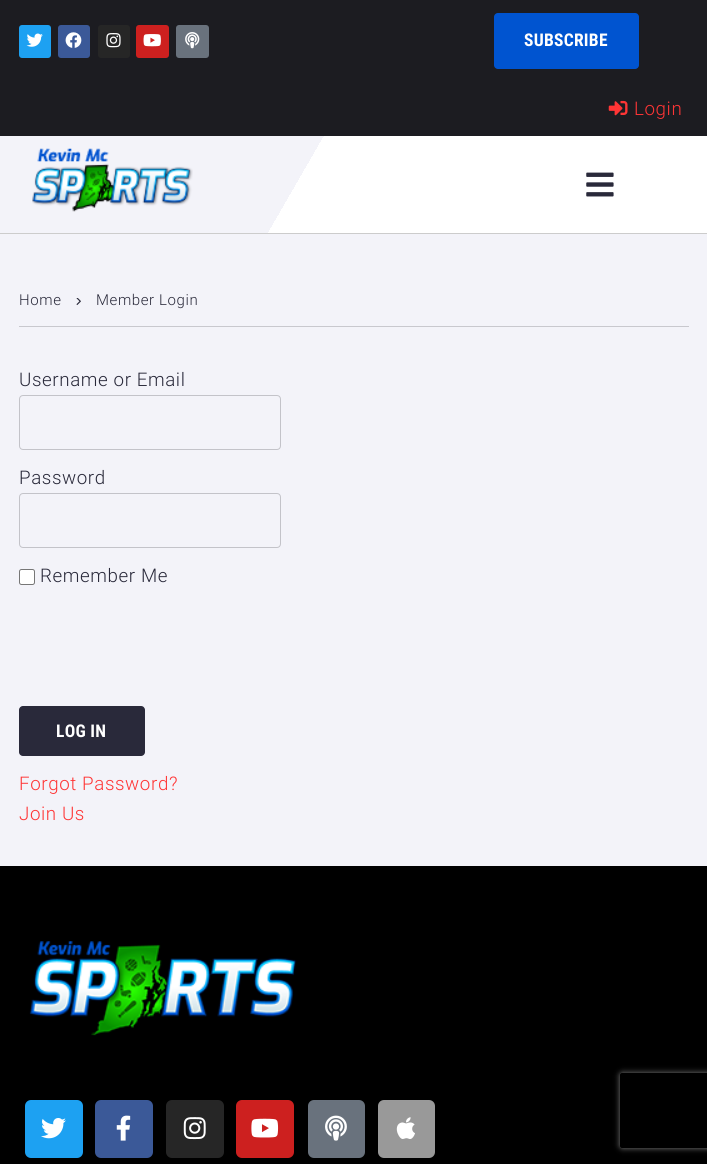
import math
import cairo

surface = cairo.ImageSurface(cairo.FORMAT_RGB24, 707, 1164)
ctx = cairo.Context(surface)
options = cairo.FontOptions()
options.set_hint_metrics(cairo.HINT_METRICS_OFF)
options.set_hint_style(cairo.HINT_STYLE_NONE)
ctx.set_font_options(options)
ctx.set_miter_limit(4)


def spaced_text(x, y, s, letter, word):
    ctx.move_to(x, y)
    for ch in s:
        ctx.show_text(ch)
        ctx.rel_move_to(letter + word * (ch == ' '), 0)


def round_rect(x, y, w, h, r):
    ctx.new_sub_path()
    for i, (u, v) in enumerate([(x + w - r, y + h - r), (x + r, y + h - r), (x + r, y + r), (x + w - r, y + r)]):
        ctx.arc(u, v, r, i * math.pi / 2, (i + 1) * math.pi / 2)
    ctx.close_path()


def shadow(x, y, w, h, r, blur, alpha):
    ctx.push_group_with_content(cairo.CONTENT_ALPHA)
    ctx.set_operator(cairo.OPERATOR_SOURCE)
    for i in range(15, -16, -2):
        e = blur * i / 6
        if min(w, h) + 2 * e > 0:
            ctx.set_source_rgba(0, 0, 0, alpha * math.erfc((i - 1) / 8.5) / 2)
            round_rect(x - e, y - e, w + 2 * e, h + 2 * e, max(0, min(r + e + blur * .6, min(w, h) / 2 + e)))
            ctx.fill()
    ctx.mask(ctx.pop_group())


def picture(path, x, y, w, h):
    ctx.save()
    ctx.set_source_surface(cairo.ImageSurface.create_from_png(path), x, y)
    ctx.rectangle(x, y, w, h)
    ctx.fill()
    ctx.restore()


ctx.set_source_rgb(0.953, 0.953, 0.976)
ctx.paint()
ctx.set_source_rgb(0.11, 0.11, 0.129)
ctx.rectangle(0, 0, 707, 136)
ctx.fill()
ctx.set_source_rgb(0.114, 0.631, 0.949)
round_rect(19, 25, 32, 33, 3)
ctx.fill()
picture("img1.png", 26, 33, 17, 14)
ctx.set_source_rgb(0.231, 0.349, 0.596)
round_rect(58, 25, 32, 33, 3)
ctx.fill()
picture("img2.png", 65, 32, 17, 16)
ctx.set_source_rgb(0.149, 0.149, 0.149)
round_rect(98, 25, 32, 33, 3)
ctx.fill()
picture("img3.png", 106, 33, 15, 15)
ctx.set_source_rgb(0.804, 0.125, 0.122)
round_rect(136, 25, 33, 33, 3)
ctx.fill()
picture("img4.png", 143, 34, 18, 13)
ctx.set_source_rgb(0.412, 0.447, 0.49)
round_rect(176, 25, 33, 33, 3)
ctx.fill()
picture("img5.png", 185, 32, 15, 17)
ctx.set_source_rgb(0, 0.329, 0.816)
round_rect(494, 13, 145, 56, 4)
ctx.fill()
ctx.select_font_face("Roboto Condensed", cairo.FONT_SLANT_NORMAL, cairo.FONT_WEIGHT_BOLD)
ctx.set_font_size(17.5)
ctx.set_source_rgb(1, 1, 1)
spaced_text(524, 46, "SUBSCRIBE", 0.25, 0)
picture("img6.png", 608, 100, 20, 16)
ctx.select_font_face("Roboto Light")
ctx.set_font_size(18.75)
ctx.set_source_rgb(1, 0.208, 0.208)
spaced_text(634, 115, "Login", 0.6, 0)
gradient = cairo.LinearGradient(68, 19, 640, 350)
gradient.add_color_stop_rgba(0.5, 0.953, 0.953, 0.976, 1)
gradient.add_color_stop_rgba(0.5, 1, 1, 1, 1)
ctx.set_source(gradient)
ctx.rectangle(326, 136, 381, 97)
ctx.fill()
ctx.set_source_rgb(0.8, 0.8, 0.8)
ctx.rectangle(0, 233, 707, 1)
ctx.fill()
gradient = cairo.LinearGradient(40, 100, 333, 269)
gradient.add_color_stop_rgba(0.78, 0.953, 0.953, 0.976, 1)
gradient.add_color_stop_rgba(0.78, 1, 1, 1, 1)
ctx.set_source(gradient)
ctx.rectangle(268, 136, 86, 97)
ctx.fill()
picture("img7.png", 32, 148, 161, 64)
ctx.set_source_rgb(1, 1, 1)
ctx.rectangle(354, 136, 28, 48)
ctx.fill()
picture("img8.png", 586, 172, 28, 25)
ctx.set_source_rgb(0.784, 0.784, 0.808)
ctx.rectangle(19, 326, 670, 1)
ctx.fill()
ctx.set_font_size(15)
ctx.set_source_rgb(0.161, 0.161, 0.227)
spaced_text(19, 305, "Home", 0.6, 0)
picture("img9.png", 76, 298, 5, 7)
spaced_text(96, 305, "Member Login", 0.6, 0)
ctx.set_font_size(18.75)
spaced_text(19, 386, "Username or Email", 0.6, 0)
round_rect(19.5, 395.5, 261, 54, 3.5)
ctx.set_source_rgb(0.765, 0.765, 0.788)
ctx.set_line_width(1)
ctx.stroke()
ctx.set_source_rgb(0.161, 0.161, 0.227)
spaced_text(19, 484, "Password", 0.6, 0)
round_rect(19.5, 493.5, 261, 54, 3.5)
ctx.set_source_rgb(0.765, 0.765, 0.788)
ctx.stroke()
ctx.set_source_rgb(1, 1, 1)
round_rect(19.5, 569.5, 15, 15, 2)
ctx.fill_preserve()
ctx.set_source_rgb(0.463, 0.463, 0.463)
ctx.stroke()
ctx.set_source_rgb(0.161, 0.161, 0.227)
spaced_text(40, 582, "Remember Me", 0.6, 0)
round_rect(19, 706, 126, 50, 4)
ctx.fill()
ctx.select_font_face("Roboto Condensed", cairo.FONT_SLANT_NORMAL, cairo.FONT_WEIGHT_BOLD)
ctx.set_font_size(17.5)
ctx.set_source_rgb(1, 1, 1)
spaced_text(56, 737, "LOG IN", 0.25, 0)
ctx.select_font_face("Roboto Light")
ctx.set_font_size(18.75)
ctx.set_source_rgb(1, 0.208, 0.208)
spaced_text(19, 790, "Forgot Password?", 0.6, 0)
spaced_text(19, 820, "Join Us", 0.6, 0)
ctx.set_source_rgb(0, 0, 0)
ctx.rectangle(0, 866, 707, 298)
ctx.fill()
picture("img10.png", 29, 941, 268, 95)
ctx.set_source_rgb(0.114, 0.631, 0.949)
round_rect(25, 1100, 58, 58, 6)
ctx.fill()
picture("img11.png", 41, 1118, 25, 21)
ctx.set_source_rgb(0.231, 0.349, 0.596)
round_rect(95, 1100, 58, 58, 6)
ctx.fill()
picture("img12.png", 116, 1115, 15, 26)
ctx.set_source_rgb(0.149, 0.149, 0.149)
round_rect(166, 1100, 58, 58, 6)
ctx.fill()
picture("img13.png", 183, 1117, 23, 23)
ctx.set_source_rgb(0.804, 0.125, 0.122)
round_rect(236, 1100, 58, 58, 6)
ctx.fill()
picture("img14.png", 251, 1118, 28, 20)
ctx.set_source_rgb(0.412, 0.447, 0.49)
round_rect(308, 1100, 57, 58, 6)
ctx.fill()
picture("img15.png", 325, 1115, 22, 26)
ctx.set_source_rgb(0.6, 0.6, 0.6)
round_rect(378, 1100, 57, 58, 6)
ctx.fill()
picture("img16.png", 396, 1117, 19, 22)
ctx.save()
ctx.set_fill_rule(cairo.FILL_RULE_EVEN_ODD)
ctx.new_path()
ctx.move_to(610, 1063)
ctx.line_to(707, 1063)
ctx.line_to(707, 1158)
ctx.line_to(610, 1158)
ctx.close_path()
ctx.move_to(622.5, 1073)
ctx.line_to(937.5, 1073)
ctx.curve_to(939, 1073, 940, 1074, 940, 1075.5)
ctx.line_to(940, 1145.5)
ctx.curve_to(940, 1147, 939, 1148, 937.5, 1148)
ctx.line_to(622.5, 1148)
ctx.curve_to(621, 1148, 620, 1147, 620, 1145.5)
ctx.line_to(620, 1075.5)
ctx.curve_to(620, 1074, 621, 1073, 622.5, 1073)
ctx.close_path()
ctx.clip()
ctx.set_source_rgb(0.502, 0.502, 0.502)
shadow(620, 1073, 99, 75, 2.5, 3, 1)
ctx.restore()
surface.write_to_png("page.png")
